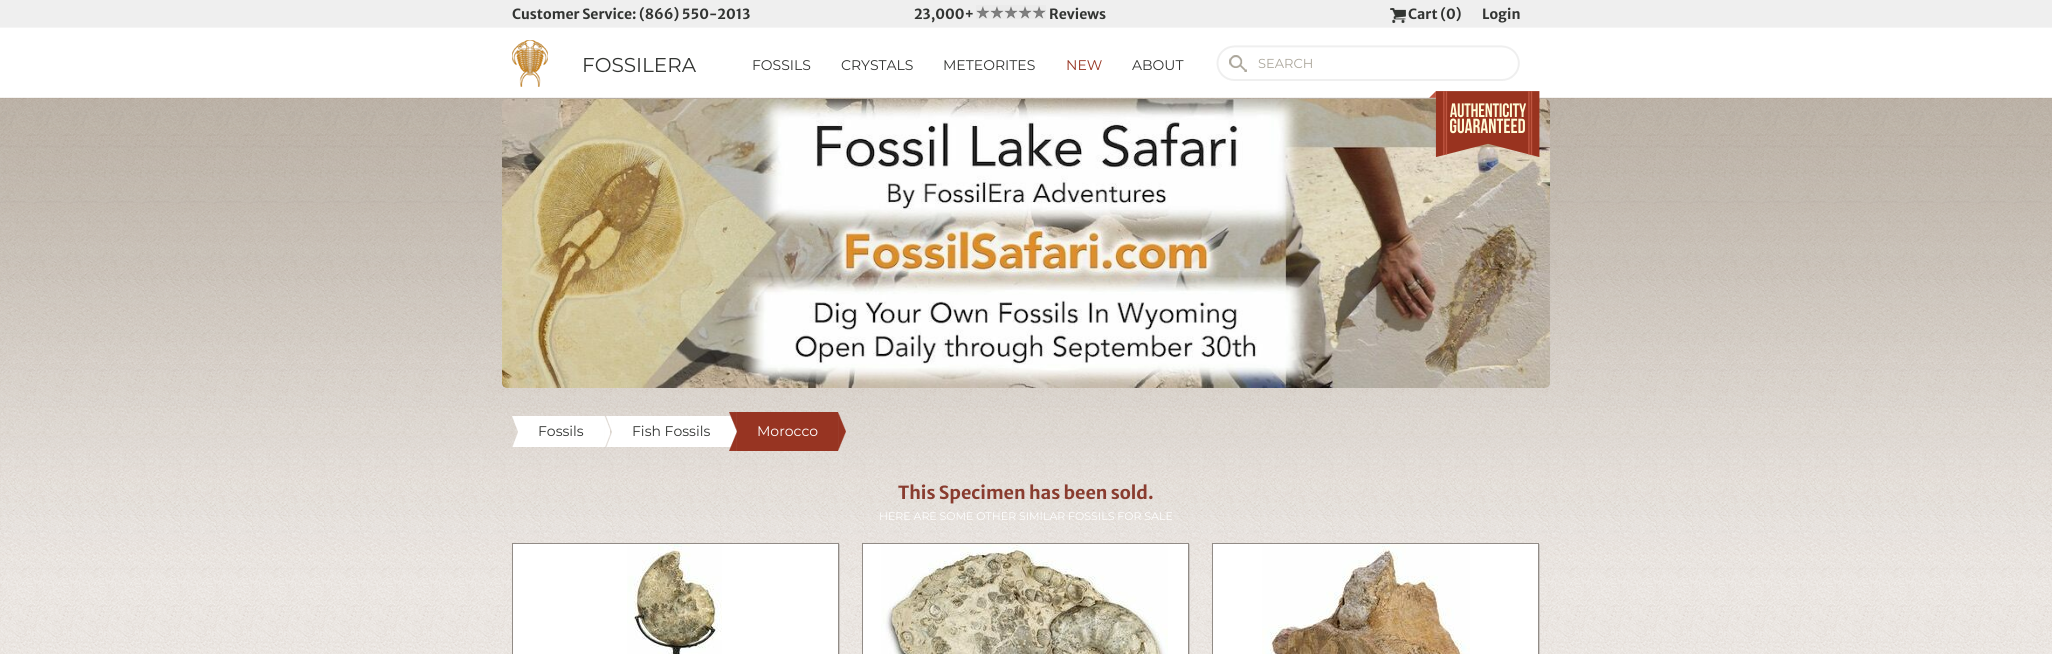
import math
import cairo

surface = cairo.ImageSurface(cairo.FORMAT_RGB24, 2052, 654)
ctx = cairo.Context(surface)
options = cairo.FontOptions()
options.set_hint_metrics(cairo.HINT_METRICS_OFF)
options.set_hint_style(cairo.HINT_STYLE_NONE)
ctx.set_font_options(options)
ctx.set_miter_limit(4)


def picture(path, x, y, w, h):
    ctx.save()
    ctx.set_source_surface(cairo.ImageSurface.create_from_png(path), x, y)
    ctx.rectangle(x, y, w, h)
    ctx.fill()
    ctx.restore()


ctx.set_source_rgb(1, 1, 1)
ctx.paint()
picture("img1.png", 0, 0, 2052, 654)
ctx.select_font_face("Merriweather Sans", cairo.FONT_SLANT_NORMAL, cairo.FONT_WEIGHT_BOLD)
ctx.set_font_size(14)
ctx.set_source_rgb(0.196, 0.204, 0.196)
ctx.move_to(512, 19)
ctx.show_text("Customer Service: (866) 550-2013")
ctx.move_to(914, 19)
ctx.show_text("23,000+")
picture("img2.png", 976, 5, 70, 14)
ctx.move_to(1049, 19)
ctx.show_text("Reviews")
picture("img3.png", 1390, 8, 16, 15)
ctx.move_to(1408, 19)
ctx.show_text("Cart (0)")
ctx.move_to(1482, 19)
ctx.show_text("Login")
picture("img4.png", 512, 40, 36, 47)
ctx.select_font_face("Montserrat")
ctx.set_font_size(20)
ctx.move_to(582, 72)
ctx.show_text("FOSSILERA")
ctx.set_font_size(14)
ctx.move_to(752, 70)
ctx.show_text("FOSSILS")
ctx.move_to(841, 70)
ctx.show_text("CRYSTALS")
ctx.move_to(943, 70)
ctx.show_text("METEORITES")
ctx.set_source_rgb(0.592, 0.204, 0.133)
ctx.move_to(1066, 70)
ctx.show_text("NEW")
ctx.set_source_rgb(0.196, 0.204, 0.196)
ctx.move_to(1132, 70)
ctx.show_text("ABOUT")
picture("img5.png", 1216, 45, 304, 36)
ctx.set_font_size(13)
ctx.set_source_rgb(0.671, 0.651, 0.608)
ctx.move_to(1258, 68)
ctx.show_text("SEARCH")
picture("img7.png", 502, 99, 1048, 289)
picture("img6.png", 1429, 91, 111, 66)
picture("img8.png", 512, 416, 6, 31)
ctx.set_source_rgb(1, 1, 1)
ctx.rectangle(518, 416, 86, 31)
ctx.fill()
ctx.set_font_size(14)
ctx.set_source_rgb(0.196, 0.204, 0.196)
ctx.move_to(538, 436)
ctx.show_text("Fossils")
picture("img9.png", 604, 416, 6, 31)
picture("img10.png", 606, 416, 6, 31)
ctx.set_source_rgb(1, 1, 1)
ctx.rectangle(612, 416, 118, 31)
ctx.fill()
ctx.set_source_rgb(0.196, 0.204, 0.196)
ctx.move_to(632, 436)
ctx.show_text("Fish Fossils")
picture("img11.png", 730, 416, 6, 31)
picture("img12.png", 729, 412, 8, 39)
ctx.set_source_rgb(0.592, 0.204, 0.133)
ctx.rectangle(737, 412, 101, 39)
ctx.fill()
ctx.set_source_rgb(1, 1, 1)
ctx.move_to(757, 436)
ctx.show_text("Morocco")
picture("img13.png", 838, 412, 8, 39)
ctx.select_font_face("Merriweather Sans", cairo.FONT_SLANT_NORMAL, cairo.FONT_WEIGHT_BOLD)
ctx.set_font_size(18)
ctx.set_source_rgb(0.537, 0.235, 0.184)
ctx.move_to(898, 499)
ctx.show_text("This Specimen has been sold.")
ctx.select_font_face("Montserrat")
ctx.set_font_size(11)
ctx.set_source_rgb(1, 1, 1)
ctx.move_to(879, 520)
ctx.show_text("HERE ARE SOME OTHER SIMILAR FOSSILS FOR SALE")
ctx.set_source_rgb(0.792, 0.776, 0.765)
ctx.new_path()
ctx.move_to(513, 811)
ctx.curve_to(514, 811, 515, 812, 516, 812)
ctx.line_to(837, 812)
ctx.curve_to(839, 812, 840, 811, 840, 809)
ctx.line_to(840, 544)
ctx.line_to(839, 544)
ctx.line_to(839, 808)
ctx.curve_to(839, 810, 838, 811, 836, 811)
ctx.line_to(515, 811)
ctx.close_path()
ctx.fill()
ctx.set_source_rgb(1, 1, 1)
ctx.rectangle(512.5, 543.5, 326, 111)
ctx.fill_preserve()
ctx.set_source_rgb(0.569, 0.545, 0.525)
ctx.set_line_width(1)
ctx.stroke()
picture("img14.png", 627, 544, 95, 110)
ctx.set_source_rgb(0.792, 0.776, 0.765)
ctx.new_path()
ctx.move_to(863, 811)
ctx.curve_to(864, 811, 865, 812, 866, 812)
ctx.line_to(1187, 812)
ctx.curve_to(1189, 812, 1190, 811, 1190, 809)
ctx.line_to(1190, 544)
ctx.line_to(1189, 544)
ctx.line_to(1189, 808)
ctx.curve_to(1189, 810, 1188, 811, 1186, 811)
ctx.line_to(865, 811)
ctx.close_path()
ctx.fill()
ctx.set_source_rgb(1, 1, 1)
ctx.rectangle(862.5, 543.5, 326, 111)
ctx.fill_preserve()
ctx.set_source_rgb(0.569, 0.545, 0.525)
ctx.stroke()
picture("img15.png", 881, 544, 287, 110)
ctx.set_source_rgb(0.792, 0.776, 0.765)
ctx.new_path()
ctx.move_to(1213, 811)
ctx.curve_to(1214, 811, 1215, 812, 1216, 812)
ctx.line_to(1537, 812)
ctx.curve_to(1539, 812, 1540, 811, 1540, 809)
ctx.line_to(1540, 544)
ctx.line_to(1539, 544)
ctx.line_to(1539, 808)
ctx.curve_to(1539, 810, 1538, 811, 1536, 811)
ctx.line_to(1215, 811)
ctx.close_path()
ctx.fill()
ctx.set_source_rgb(1, 1, 1)
ctx.rectangle(1212.5, 543.5, 326, 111)
ctx.fill_preserve()
ctx.set_source_rgb(0.569, 0.545, 0.525)
ctx.stroke()
picture("img16.png", 1262, 544, 208, 110)
surface.write_to_png("page.png")
